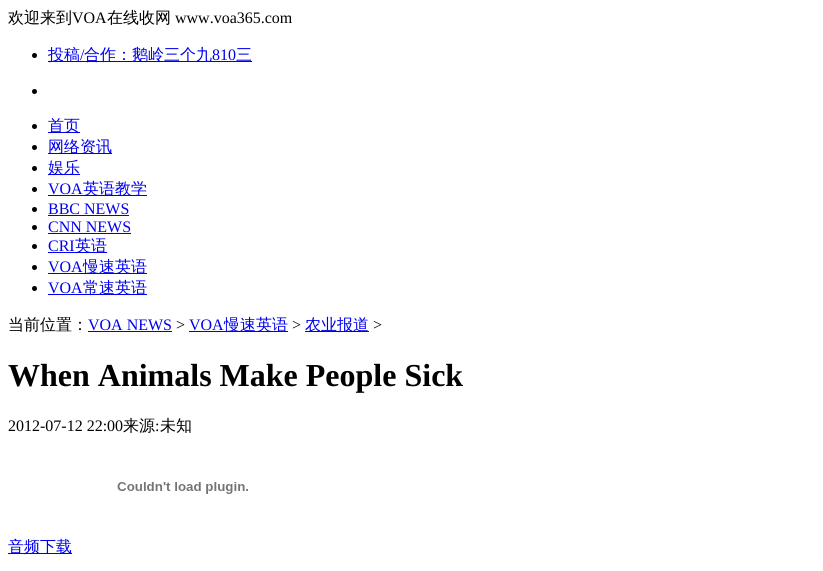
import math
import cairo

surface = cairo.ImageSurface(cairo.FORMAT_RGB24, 823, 571)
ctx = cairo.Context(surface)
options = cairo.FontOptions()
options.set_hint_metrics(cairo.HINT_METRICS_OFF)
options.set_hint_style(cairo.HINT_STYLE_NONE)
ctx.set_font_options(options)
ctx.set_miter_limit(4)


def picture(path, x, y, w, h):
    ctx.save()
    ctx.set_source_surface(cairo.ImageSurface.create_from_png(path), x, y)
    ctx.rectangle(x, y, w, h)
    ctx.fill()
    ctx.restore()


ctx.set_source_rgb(1, 1, 1)
ctx.paint()
ctx.select_font_face("WenQuanYi Zen Hei Medium")
ctx.set_font_size(16)
ctx.set_source_rgb(0, 0, 0)
ctx.move_to(8, 23)
ctx.show_text("欢迎来到")
ctx.select_font_face("Liberation Serif")
ctx.move_to(72, 23)
ctx.show_text("VOA")
ctx.select_font_face("WenQuanYi Zen Hei Medium")
ctx.move_to(107, 23)
ctx.show_text("在线收网")
ctx.select_font_face("Liberation Serif")
ctx.move_to(175, 23)
ctx.show_text("www.voa365.com")
ctx.new_path()
ctx.arc(34.5, 55.5, 2.5, 0, 2 * math.pi)
ctx.fill()
ctx.set_source_rgb(0, 0, 0.933)
ctx.rectangle(48, 61, 204, 1)
ctx.fill()
ctx.select_font_face("WenQuanYi Zen Hei Medium")
ctx.move_to(48, 60)
ctx.show_text("投稿")
ctx.select_font_face("Liberation Serif")
ctx.move_to(80, 60)
ctx.show_text("/")
ctx.select_font_face("WenQuanYi Zen Hei Medium")
ctx.move_to(84, 60)
ctx.show_text("合作：鹅岭三个九")
ctx.select_font_face("Liberation Serif")
ctx.move_to(212, 60)
ctx.show_text("810")
ctx.select_font_face("WenQuanYi Zen Hei Medium")
ctx.move_to(236, 60)
ctx.show_text("三")
ctx.set_source_rgb(0, 0, 0)
ctx.new_path()
ctx.arc(34.5, 91.5, 2.5, 0, 2 * math.pi)
ctx.fill()
ctx.arc(34.5, 126.5, 2.5, 0, 2 * math.pi)
ctx.fill()
ctx.set_source_rgb(0, 0, 0.933)
ctx.rectangle(48, 132, 32, 1)
ctx.fill()
ctx.move_to(48, 131)
ctx.show_text("首页")
ctx.set_source_rgb(0, 0, 0)
ctx.new_path()
ctx.arc(34.5, 147.5, 2.5, 0, 2 * math.pi)
ctx.fill()
ctx.set_source_rgb(0, 0, 0.933)
ctx.rectangle(48, 153, 64, 1)
ctx.fill()
ctx.move_to(48, 152)
ctx.show_text("网络资讯")
ctx.set_source_rgb(0, 0, 0)
ctx.new_path()
ctx.arc(34.5, 168.5, 2.5, 0, 2 * math.pi)
ctx.fill()
ctx.set_source_rgb(0, 0, 0.933)
ctx.rectangle(48, 174, 32, 1)
ctx.fill()
ctx.move_to(48, 173)
ctx.show_text("娱乐")
ctx.set_source_rgb(0, 0, 0)
ctx.new_path()
ctx.arc(34.5, 189.5, 2.5, 0, 2 * math.pi)
ctx.fill()
ctx.select_font_face("Liberation Serif")
ctx.set_source_rgb(0, 0, 0.933)
ctx.move_to(48, 194)
ctx.show_text("VOA")
ctx.rectangle(48, 195, 99, 1)
ctx.fill()
ctx.select_font_face("WenQuanYi Zen Hei Medium")
ctx.move_to(83, 194)
ctx.show_text("英语教学")
ctx.set_source_rgb(0, 0, 0)
ctx.new_path()
ctx.arc(34.5, 209.5, 2.5, 0, 2 * math.pi)
ctx.fill()
ctx.select_font_face("Liberation Serif")
ctx.set_source_rgb(0, 0, 0.933)
ctx.move_to(48, 214)
ctx.show_text("BBC NEWS")
ctx.rectangle(48, 215, 81, 1)
ctx.fill()
ctx.set_source_rgb(0, 0, 0)
ctx.arc(34.5, 227.5, 2.5, 0, 2 * math.pi)
ctx.fill()
ctx.set_source_rgb(0, 0, 0.933)
ctx.move_to(48, 232)
ctx.show_text("CNN NEWS")
ctx.rectangle(48, 233, 83, 1)
ctx.fill()
ctx.set_source_rgb(0, 0, 0)
ctx.arc(34.5, 246.5, 2.5, 0, 2 * math.pi)
ctx.fill()
ctx.set_source_rgb(0, 0, 0.933)
ctx.move_to(48, 251)
ctx.show_text("CRI")
ctx.rectangle(48, 252, 59, 1)
ctx.fill()
ctx.select_font_face("WenQuanYi Zen Hei Medium")
ctx.move_to(75, 251)
ctx.show_text("英语")
ctx.set_source_rgb(0, 0, 0)
ctx.new_path()
ctx.arc(34.5, 267.5, 2.5, 0, 2 * math.pi)
ctx.fill()
ctx.select_font_face("Liberation Serif")
ctx.set_source_rgb(0, 0, 0.933)
ctx.move_to(48, 272)
ctx.show_text("VOA")
ctx.rectangle(48, 273, 99, 1)
ctx.fill()
ctx.select_font_face("WenQuanYi Zen Hei Medium")
ctx.move_to(83, 272)
ctx.show_text("慢速英语")
ctx.set_source_rgb(0, 0, 0)
ctx.new_path()
ctx.arc(34.5, 288.5, 2.5, 0, 2 * math.pi)
ctx.fill()
ctx.select_font_face("Liberation Serif")
ctx.set_source_rgb(0, 0, 0.933)
ctx.move_to(48, 293)
ctx.show_text("VOA")
ctx.rectangle(48, 294, 99, 1)
ctx.fill()
ctx.select_font_face("WenQuanYi Zen Hei Medium")
ctx.move_to(83, 293)
ctx.show_text("常速英语")
ctx.set_source_rgb(0, 0, 0)
ctx.move_to(8, 330)
ctx.show_text("当前位置：")
ctx.select_font_face("Liberation Serif")
ctx.set_source_rgb(0, 0, 0.933)
ctx.move_to(88, 330)
ctx.show_text("VOA NEWS")
ctx.rectangle(88, 331, 84, 1)
ctx.fill()
ctx.set_source_rgb(0, 0, 0)
ctx.move_to(176, 330)
ctx.show_text(">")
ctx.set_source_rgb(0, 0, 0.933)
ctx.move_to(189, 330)
ctx.show_text("VOA")
ctx.rectangle(189, 331, 99, 1)
ctx.fill()
ctx.select_font_face("WenQuanYi Zen Hei Medium")
ctx.move_to(224, 330)
ctx.show_text("慢速英语")
ctx.select_font_face("Liberation Serif")
ctx.set_source_rgb(0, 0, 0)
ctx.move_to(292, 330)
ctx.show_text(">")
ctx.set_source_rgb(0, 0, 0.933)
ctx.rectangle(305, 331, 64, 1)
ctx.fill()
ctx.select_font_face("WenQuanYi Zen Hei Medium")
ctx.move_to(305, 330)
ctx.show_text("农业报道")
ctx.select_font_face("Liberation Serif")
ctx.set_source_rgb(0, 0, 0)
ctx.move_to(373, 330)
ctx.show_text(">")
ctx.select_font_face("Liberation Serif", cairo.FONT_SLANT_NORMAL, cairo.FONT_WEIGHT_BOLD)
ctx.set_font_size(32)
ctx.move_to(8, 386)
ctx.show_text("When Animals Make People Sick")
ctx.select_font_face("Liberation Serif")
ctx.set_font_size(16)
ctx.move_to(8, 431)
ctx.show_text("2012-07-12 22:00")
ctx.select_font_face("WenQuanYi Zen Hei Medium")
ctx.move_to(123, 431)
ctx.show_text("来源")
ctx.select_font_face("Liberation Serif")
ctx.move_to(155, 431)
ctx.show_text(":")
ctx.select_font_face("WenQuanYi Zen Hei Medium")
ctx.move_to(160, 431)
ctx.show_text("未知")
picture("img1.png", 117, 482, 131, 12)
ctx.set_source_rgb(0, 0, 0.933)
ctx.rectangle(8, 553, 64, 1)
ctx.fill()
ctx.move_to(8, 552)
ctx.show_text("音频下载")
surface.write_to_png("page.png")
